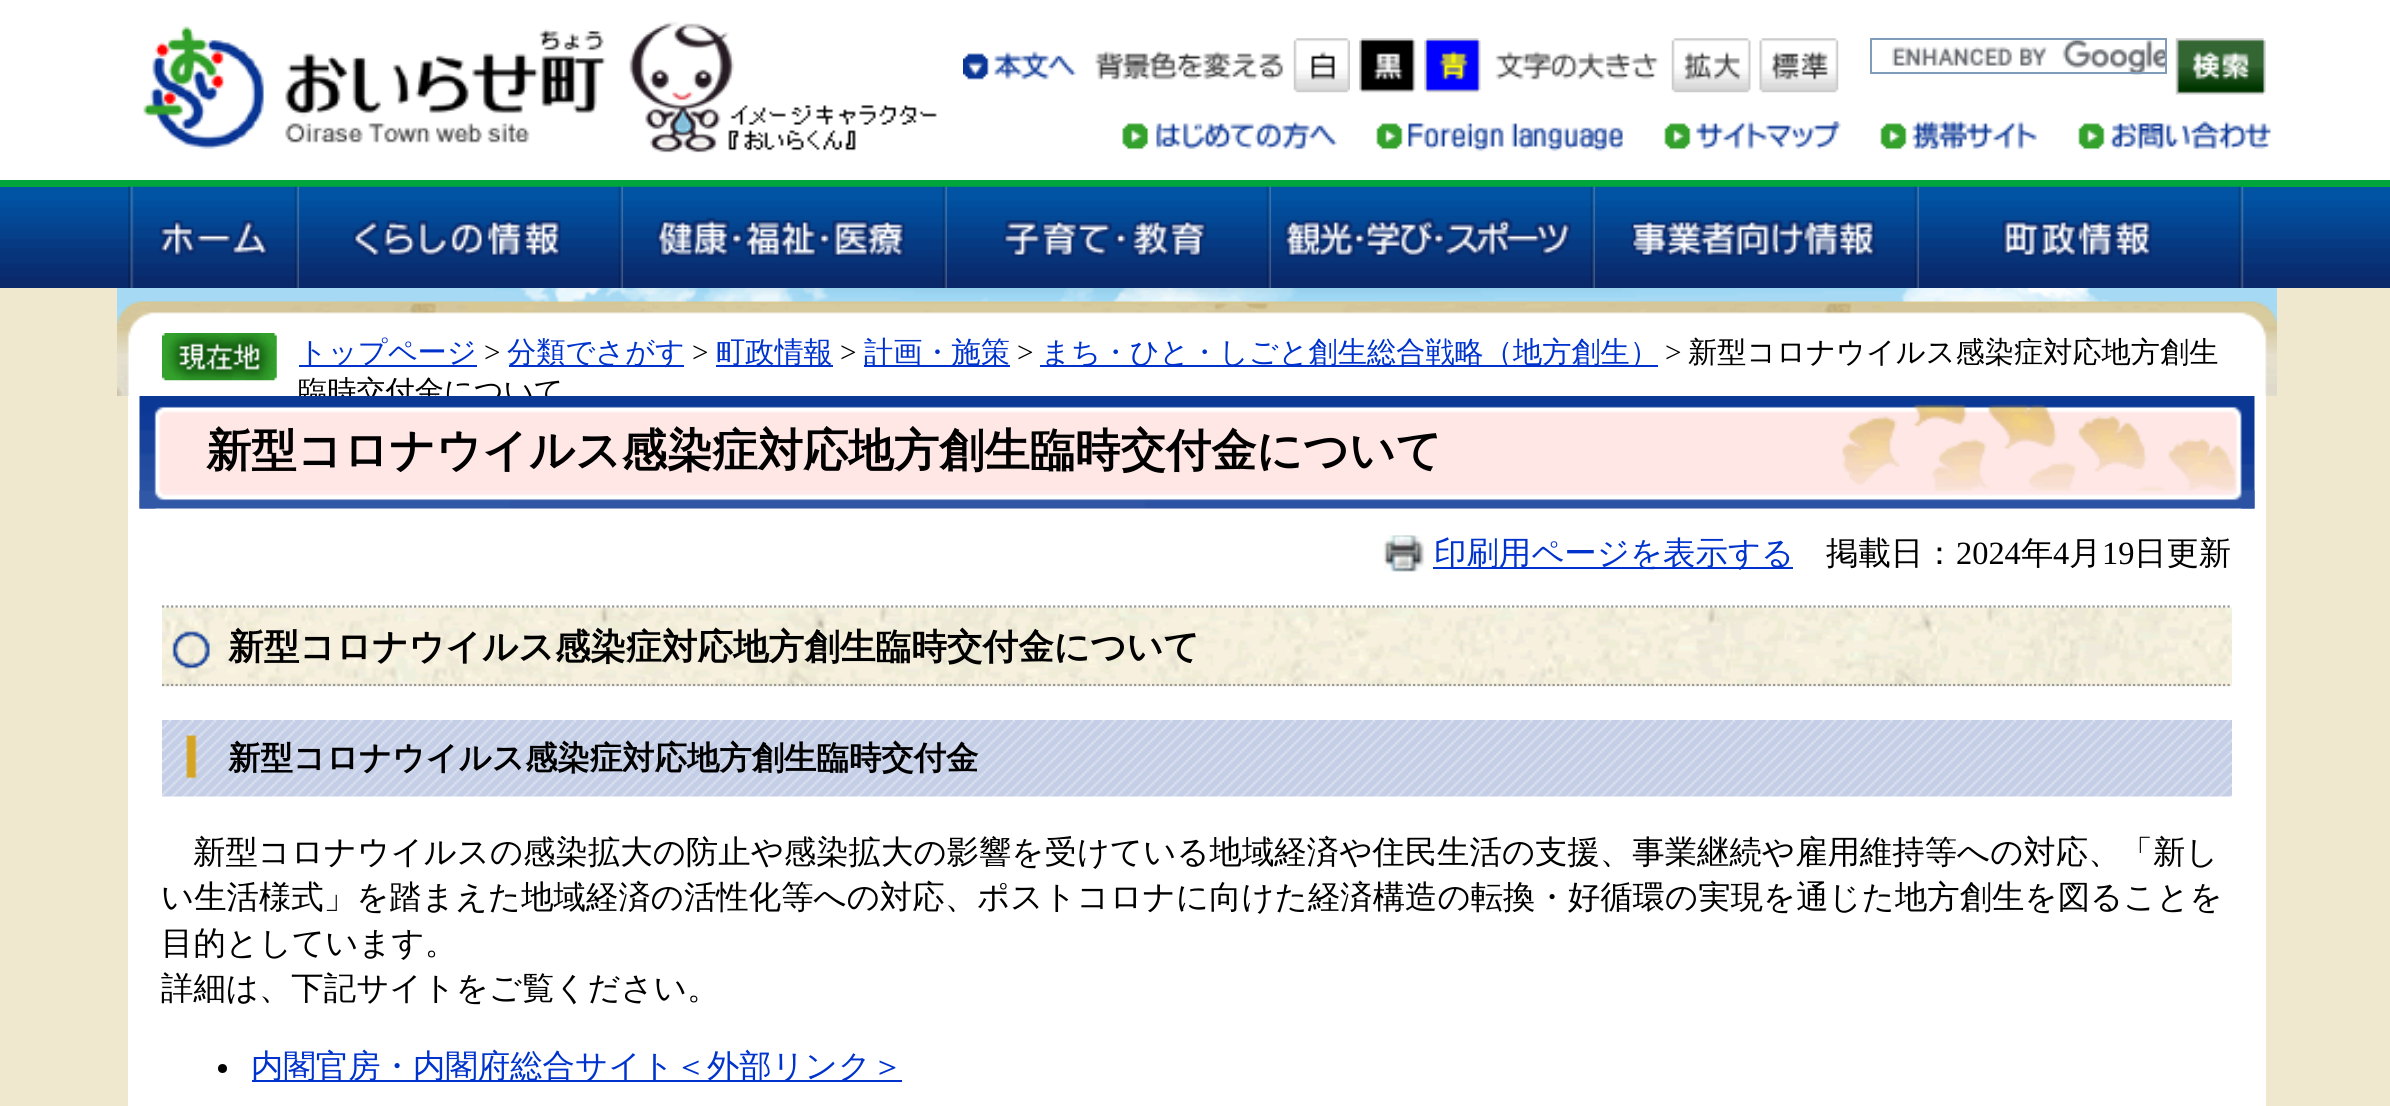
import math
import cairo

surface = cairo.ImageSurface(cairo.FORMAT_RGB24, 2390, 1106)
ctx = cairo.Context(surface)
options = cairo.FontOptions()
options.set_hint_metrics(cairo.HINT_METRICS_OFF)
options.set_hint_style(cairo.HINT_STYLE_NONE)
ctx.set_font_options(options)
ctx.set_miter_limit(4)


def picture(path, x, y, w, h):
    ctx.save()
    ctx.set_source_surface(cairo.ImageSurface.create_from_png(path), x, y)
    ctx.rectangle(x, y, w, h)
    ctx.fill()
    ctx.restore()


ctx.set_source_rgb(0.937, 0.91, 0.812)
ctx.paint()
ctx.set_source_rgb(1, 1, 1)
ctx.rectangle(0, 0, 2390, 180)
ctx.fill()
picture("img1.png", 143, 26, 463, 124)
picture("img2.png", 629, 21, 308, 132)
picture("img3.png", 963, 51, 114, 29)
picture("img4.png", 1095, 51, 189, 29)
picture("img5.png", 1293, 38, 57, 55)
picture("img6.png", 1359, 38, 57, 55)
picture("img7.png", 1424, 38, 57, 55)
picture("img8.png", 1495, 51, 164, 29)
picture("img9.png", 1671, 38, 80, 55)
picture("img10.png", 1759, 38, 80, 55)
picture("img11.png", 1892, 40, 273, 35)
ctx.rectangle(1871, 39, 295, 34)
ctx.set_source_rgb(0.498, 0.616, 0.725)
ctx.stroke()
picture("img12.png", 2175, 38, 91, 57)
picture("img13.png", 1122, 121, 215, 29)
picture("img14.png", 1376, 123, 247, 29)
picture("img15.png", 1664, 121, 177, 29)
picture("img16.png", 1880, 121, 157, 29)
picture("img17.png", 2078, 121, 193, 29)
picture("img18.png", 0, 187, 2390, 101)
ctx.set_source_rgb(0, 0.651, 0.235)
ctx.rectangle(0, 180, 2390, 7)
ctx.fill()
picture("img19.png", 128, 186, 172, 102)
picture("img20.png", 299, 186, 325, 102)
picture("img21.png", 623, 186, 325, 102)
picture("img22.png", 947, 186, 325, 102)
picture("img23.png", 1271, 186, 325, 102)
picture("img24.png", 1595, 186, 325, 102)
picture("img25.png", 1919, 186, 325, 102)
picture("img26.png", 117, 288, 2160, 108)
picture("img27.png", 162, 333, 115, 48)
ctx.set_source_rgb(0, 0.2, 0.8)
ctx.rectangle(299, 365, 178, 2)
ctx.fill()
ctx.select_font_face("WenQuanYi Zen Hei Medium")
ctx.set_font_size(29.2)
ctx.move_to(298, 362)
ctx.show_text("トップページ")
ctx.select_font_face("Liberation Serif")
ctx.set_source_rgb(0, 0, 0)
ctx.move_to(484, 362)
ctx.show_text(">")
ctx.set_source_rgb(0, 0.2, 0.8)
ctx.rectangle(509, 365, 175, 2)
ctx.fill()
ctx.select_font_face("WenQuanYi Zen Hei Medium")
ctx.move_to(507, 362)
ctx.show_text("分類でさがす")
ctx.select_font_face("Liberation Serif")
ctx.set_source_rgb(0, 0, 0)
ctx.move_to(692, 362)
ctx.show_text(">")
ctx.set_source_rgb(0, 0.2, 0.8)
ctx.rectangle(716, 365, 117, 2)
ctx.fill()
ctx.select_font_face("WenQuanYi Zen Hei Medium")
ctx.move_to(716, 362)
ctx.show_text("町政情報")
ctx.select_font_face("Liberation Serif")
ctx.set_source_rgb(0, 0, 0)
ctx.move_to(840, 362)
ctx.show_text(">")
ctx.set_source_rgb(0, 0.2, 0.8)
ctx.rectangle(864, 365, 146, 2)
ctx.fill()
ctx.select_font_face("WenQuanYi Zen Hei Medium")
ctx.move_to(864, 362)
ctx.show_text("計画・施策")
ctx.select_font_face("Liberation Serif")
ctx.set_source_rgb(0, 0, 0)
ctx.move_to(1017, 362)
ctx.show_text(">")
ctx.set_source_rgb(0, 0.2, 0.8)
ctx.rectangle(1040, 365, 618, 2)
ctx.fill()
ctx.select_font_face("WenQuanYi Zen Hei Medium")
ctx.move_to(1041, 362)
ctx.show_text("まち・ひと・しごと創生総合戦略（地方創生）")
ctx.select_font_face("Liberation Serif")
ctx.set_source_rgb(0, 0, 0)
ctx.move_to(1665, 362)
ctx.show_text(">")
ctx.select_font_face("WenQuanYi Zen Hei Medium")
ctx.move_to(1688, 362)
ctx.show_text("新型コロナウイルス感染症対応地方創生")
ctx.move_to(298, 401)
ctx.show_text("臨時交付金について")
ctx.set_source_rgb(1, 1, 1)
ctx.rectangle(128, 396, 2138, 710)
ctx.fill()
picture("img28.png", 139, 396, 2116, 113)
picture("img29.png", 139, 490, 2116, 19)
ctx.select_font_face("WenQuanYi Zen Hei", cairo.FONT_SLANT_NORMAL, cairo.FONT_WEIGHT_BOLD)
ctx.set_font_size(45.35)
ctx.set_source_rgb(0, 0, 0)
ctx.move_to(206, 466)
ctx.show_text("新型コロナウイルス感染症対応地方創生臨時交付金について")
picture("img30.png", 1383, 535, 42, 37)
ctx.set_source_rgb(0, 0.2, 0.8)
ctx.rectangle(1433, 567, 360, 2)
ctx.fill()
ctx.select_font_face("WenQuanYi Zen Hei Medium")
ctx.set_font_size(32.4)
ctx.move_to(1434, 564)
ctx.show_text("印刷用ページを表示する")
ctx.set_source_rgb(0, 0, 0)
ctx.move_to(1826, 564)
ctx.show_text("掲載日：")
ctx.select_font_face("Liberation Serif")
ctx.move_to(1956, 564)
ctx.show_text("2024")
ctx.select_font_face("WenQuanYi Zen Hei Medium")
ctx.move_to(2021, 564)
ctx.show_text("年")
ctx.select_font_face("Liberation Serif")
ctx.move_to(2053, 564)
ctx.show_text("4")
ctx.select_font_face("WenQuanYi Zen Hei Medium")
ctx.move_to(2069, 564)
ctx.show_text("月")
ctx.select_font_face("Liberation Serif")
ctx.move_to(2102, 564)
ctx.show_text("19")
ctx.select_font_face("WenQuanYi Zen Hei Medium")
ctx.move_to(2134, 564)
ctx.show_text("日更新")
picture("img31.png", 162, 607, 2070, 80)
ctx.new_path()
ctx.move_to(162, 606.5)
ctx.line_to(2232, 606.5)
ctx.set_source_rgb(0.6, 0.6, 0.6)
ctx.set_line_width(2.2)
ctx.set_dash([2.25, 2.25])
ctx.stroke()
ctx.new_path()
ctx.move_to(162, 685)
ctx.line_to(2232, 685)
ctx.stroke()
ctx.select_font_face("WenQuanYi Zen Hei", cairo.FONT_SLANT_NORMAL, cairo.FONT_WEIGHT_BOLD)
ctx.set_font_size(35.65)
ctx.set_source_rgb(0, 0, 0)
ctx.move_to(228, 659)
ctx.show_text("新型コロナウイルス感染症対応地方創生臨時交付金について")
picture("img32.png", 162, 720, 2070, 77)
ctx.set_font_size(32.4)
ctx.move_to(228, 769)
ctx.show_text("新型コロナウイルス感染症対応地方創生臨時交付金")
ctx.select_font_face("WenQuanYi Zen Hei Medium")
ctx.move_to(193, 863)
ctx.show_text("新型コロナウイルスの感染拡大の防止や感染拡大の影響を受けている地域経済や住民生活の支援、事業継続や雇用維持等への対応、「新し")
ctx.move_to(161, 908)
ctx.show_text("い生活様式」を踏まえた地域経済の活性化等への対応、ポストコロナに向けた経済構造の転換・好循環の実現を通じた地方創生を図ることを")
ctx.move_to(161, 954)
ctx.show_text("目的としています。")
ctx.move_to(161, 999)
ctx.show_text("詳細は、下記サイトをご覧ください。")
ctx.new_path()
ctx.arc(222.5, 1068.5, 4.5, 0, 2 * math.pi)
ctx.fill()
ctx.set_source_rgb(0, 0.2, 0.8)
ctx.rectangle(252, 1080, 650, 2)
ctx.fill()
ctx.move_to(251, 1077)
ctx.show_text("内閣官房・内閣府総合サイト＜外部リンク＞")
surface.write_to_png("page.png")
